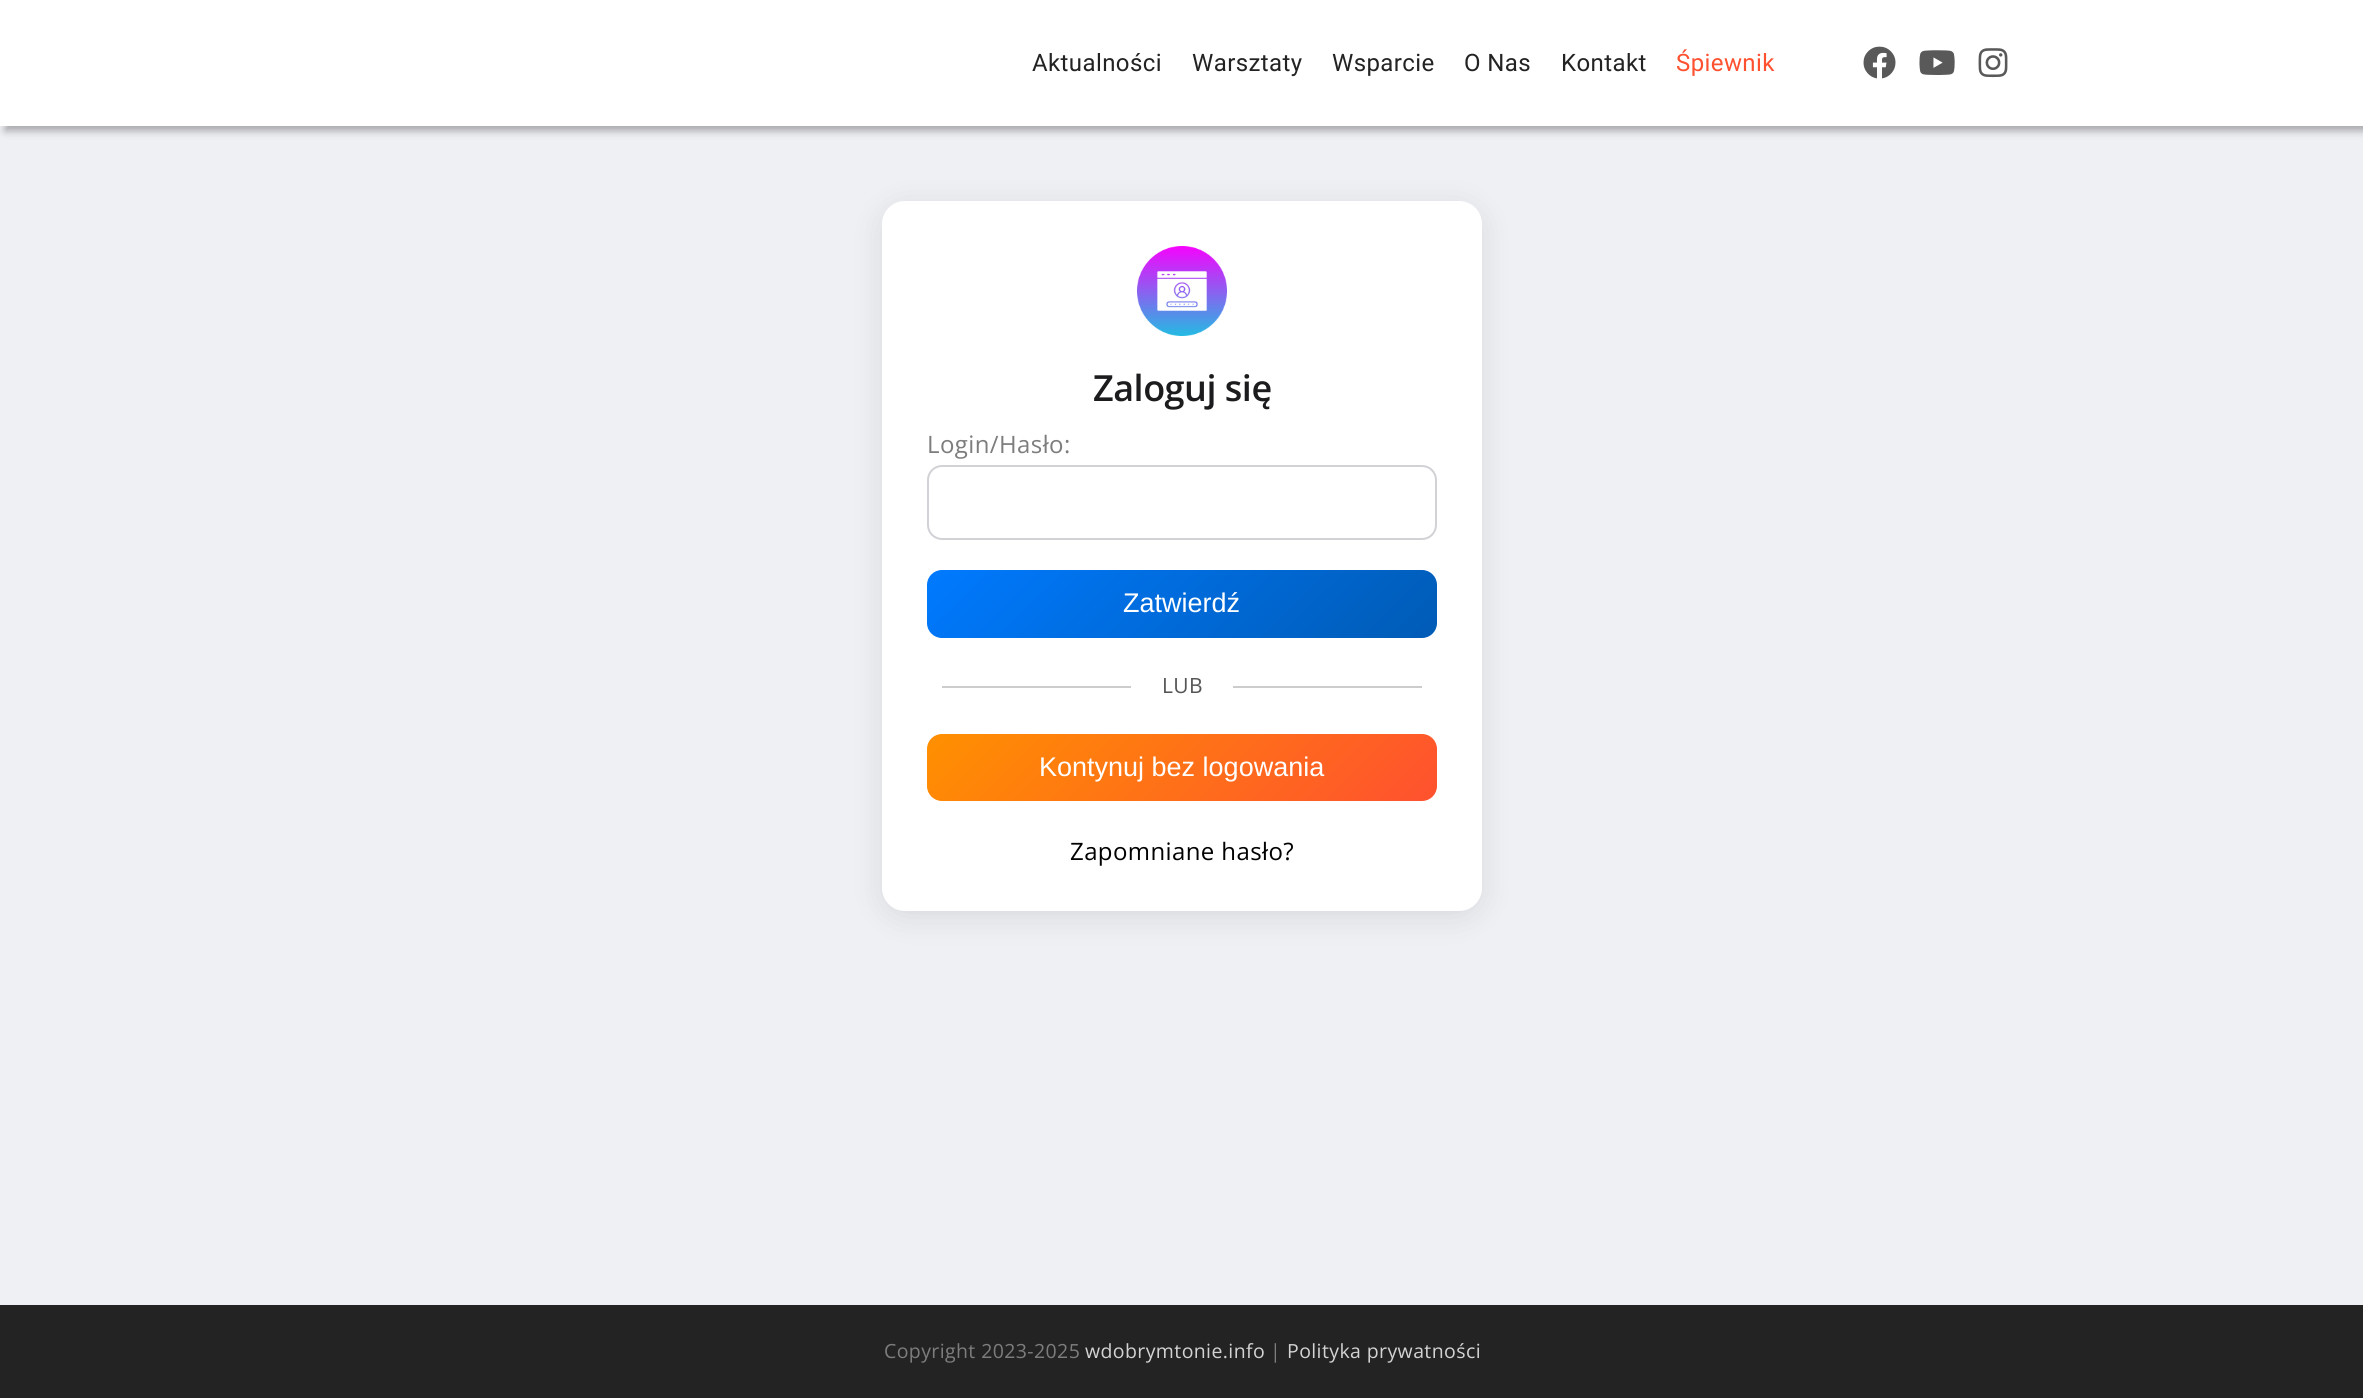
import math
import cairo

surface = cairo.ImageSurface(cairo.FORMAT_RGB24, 2363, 1398)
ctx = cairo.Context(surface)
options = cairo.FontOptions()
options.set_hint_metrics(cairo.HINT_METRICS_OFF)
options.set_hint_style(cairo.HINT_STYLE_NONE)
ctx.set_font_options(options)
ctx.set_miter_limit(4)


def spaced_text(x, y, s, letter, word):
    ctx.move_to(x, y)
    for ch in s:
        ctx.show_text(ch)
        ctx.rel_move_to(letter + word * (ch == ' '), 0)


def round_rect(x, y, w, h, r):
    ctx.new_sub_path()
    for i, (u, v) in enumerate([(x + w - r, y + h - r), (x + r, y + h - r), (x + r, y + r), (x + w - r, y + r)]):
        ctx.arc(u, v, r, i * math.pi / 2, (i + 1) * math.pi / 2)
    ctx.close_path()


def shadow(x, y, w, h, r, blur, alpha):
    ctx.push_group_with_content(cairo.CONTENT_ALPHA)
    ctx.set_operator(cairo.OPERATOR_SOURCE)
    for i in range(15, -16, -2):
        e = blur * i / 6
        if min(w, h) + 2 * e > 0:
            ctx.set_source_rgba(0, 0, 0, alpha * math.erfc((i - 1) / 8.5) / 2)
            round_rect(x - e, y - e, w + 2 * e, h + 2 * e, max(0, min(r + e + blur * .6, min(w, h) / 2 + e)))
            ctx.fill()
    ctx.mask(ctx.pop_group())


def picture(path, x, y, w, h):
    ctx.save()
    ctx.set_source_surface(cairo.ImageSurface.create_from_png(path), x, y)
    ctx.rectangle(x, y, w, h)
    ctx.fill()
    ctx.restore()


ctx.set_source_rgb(0.937, 0.941, 0.957)
ctx.paint()
ctx.set_source_rgb(0, 0, 0)
shadow(5, 5, 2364, 126, 0, 4, 0.3)
ctx.set_source_rgb(1, 1, 1)
ctx.rectangle(0, 0, 2363, 126)
ctx.fill()
ctx.select_font_face("Roboto")
ctx.set_font_size(24)
ctx.set_source_rgb(0.137, 0.137, 0.137)
spaced_text(1032, 71, "Aktualności", 0.4, 0)
spaced_text(1192, 71, "Warsztaty", 0.4, 0)
spaced_text(1332, 71, "Wsparcie", 0.4, 0)
spaced_text(1464, 71, "O Nas", 0.4, 0)
spaced_text(1561, 71, "Kontakt", 0.4, 0)
ctx.set_source_rgb(1, 0.318, 0.184)
spaced_text(1676, 71, "Śpiewnik", 0.4, 0)
picture("img1.png", 1863, 46, 33, 33)
picture("img2.png", 1919, 50, 36, 25)
picture("img3.png", 1978, 48, 30, 30)
ctx.set_source_rgb(0, 0, 0)
shadow(882, 207, 600, 710, 23, 15, 0.1)
ctx.set_source_rgb(1, 1, 1)
round_rect(882, 201, 600, 710, 23)
ctx.fill()
picture("img4.png", 1137, 246, 90, 90)
ctx.select_font_face("Open Sans SemiBold")
ctx.set_font_size(36)
ctx.set_source_rgb(0.11, 0.11, 0.118)
spaced_text(1093, 401, "Zaloguj się", -0.5, 0)
ctx.select_font_face("Open Sans")
ctx.set_font_size(24)
ctx.set_source_rgb(0.49, 0.49, 0.49)
spaced_text(927, 453, "Login/Hasło:", 0.4, 0)
round_rect(928, 466, 508, 73, 14)
ctx.set_source_rgb(0.82, 0.82, 0.839)
ctx.stroke()
gradient = cairo.LinearGradient(1038, 459, 1326, 748)
gradient.add_color_stop_rgba(0, 0, 0.478, 1, 1)
gradient.add_color_stop_rgba(1, 0, 0.357, 0.71, 1)
ctx.set_source(gradient)
round_rect(927, 570, 510, 68, 15)
ctx.fill()
ctx.select_font_face("Liberation Sans")
ctx.set_font_size(27)
ctx.set_source_rgb(1, 1, 1)
ctx.move_to(1123, 612)
ctx.show_text("Zatwierdź")
ctx.set_source_rgb(0.8, 0.8, 0.8)
ctx.rectangle(942, 686, 189, 2)
ctx.fill()
ctx.select_font_face("Open Sans")
ctx.set_font_size(21)
ctx.set_source_rgb(0.333, 0.333, 0.333)
spaced_text(1162, 693, "LUB", 0.4, 0)
ctx.set_source_rgb(0.8, 0.8, 0.8)
ctx.rectangle(1233, 686, 189, 2)
ctx.fill()
gradient = cairo.LinearGradient(1038, 623, 1326, 912)
gradient.add_color_stop_rgba(0, 1, 0.565, 0, 1)
gradient.add_color_stop_rgba(1, 1, 0.318, 0.184, 1)
ctx.set_source(gradient)
round_rect(927, 734, 510, 67, 15)
ctx.fill()
ctx.select_font_face("Liberation Sans")
ctx.set_font_size(27)
ctx.set_source_rgb(1, 1, 1)
ctx.move_to(1039, 776)
ctx.show_text("Kontynuj bez logowania")
ctx.select_font_face("Open Sans")
ctx.set_font_size(24)
ctx.set_source_rgb(0, 0, 0)
spaced_text(1070, 860, "Zapomniane hasło?", 0.4, 0)
ctx.set_source_rgb(0.137, 0.137, 0.137)
ctx.rectangle(0, 1305, 2363, 93)
ctx.fill()
ctx.set_font_size(19.5)
ctx.set_source_rgb(0.49, 0.49, 0.49)
spaced_text(884, 1358, "Copyright 2023-2025", 0.4, 0)
ctx.set_source_rgb(0.827, 0.827, 0.827)
spaced_text(1085, 1358, "wdobrymtonie.info", 0.4, 0)
ctx.set_source_rgb(0.49, 0.49, 0.49)
spaced_text(1270, 1358, "|", 0.4, 0)
ctx.set_source_rgb(0.827, 0.827, 0.827)
spaced_text(1287, 1358, "Polityka prywatności", 0.4, 0)
surface.write_to_png("page.png")
